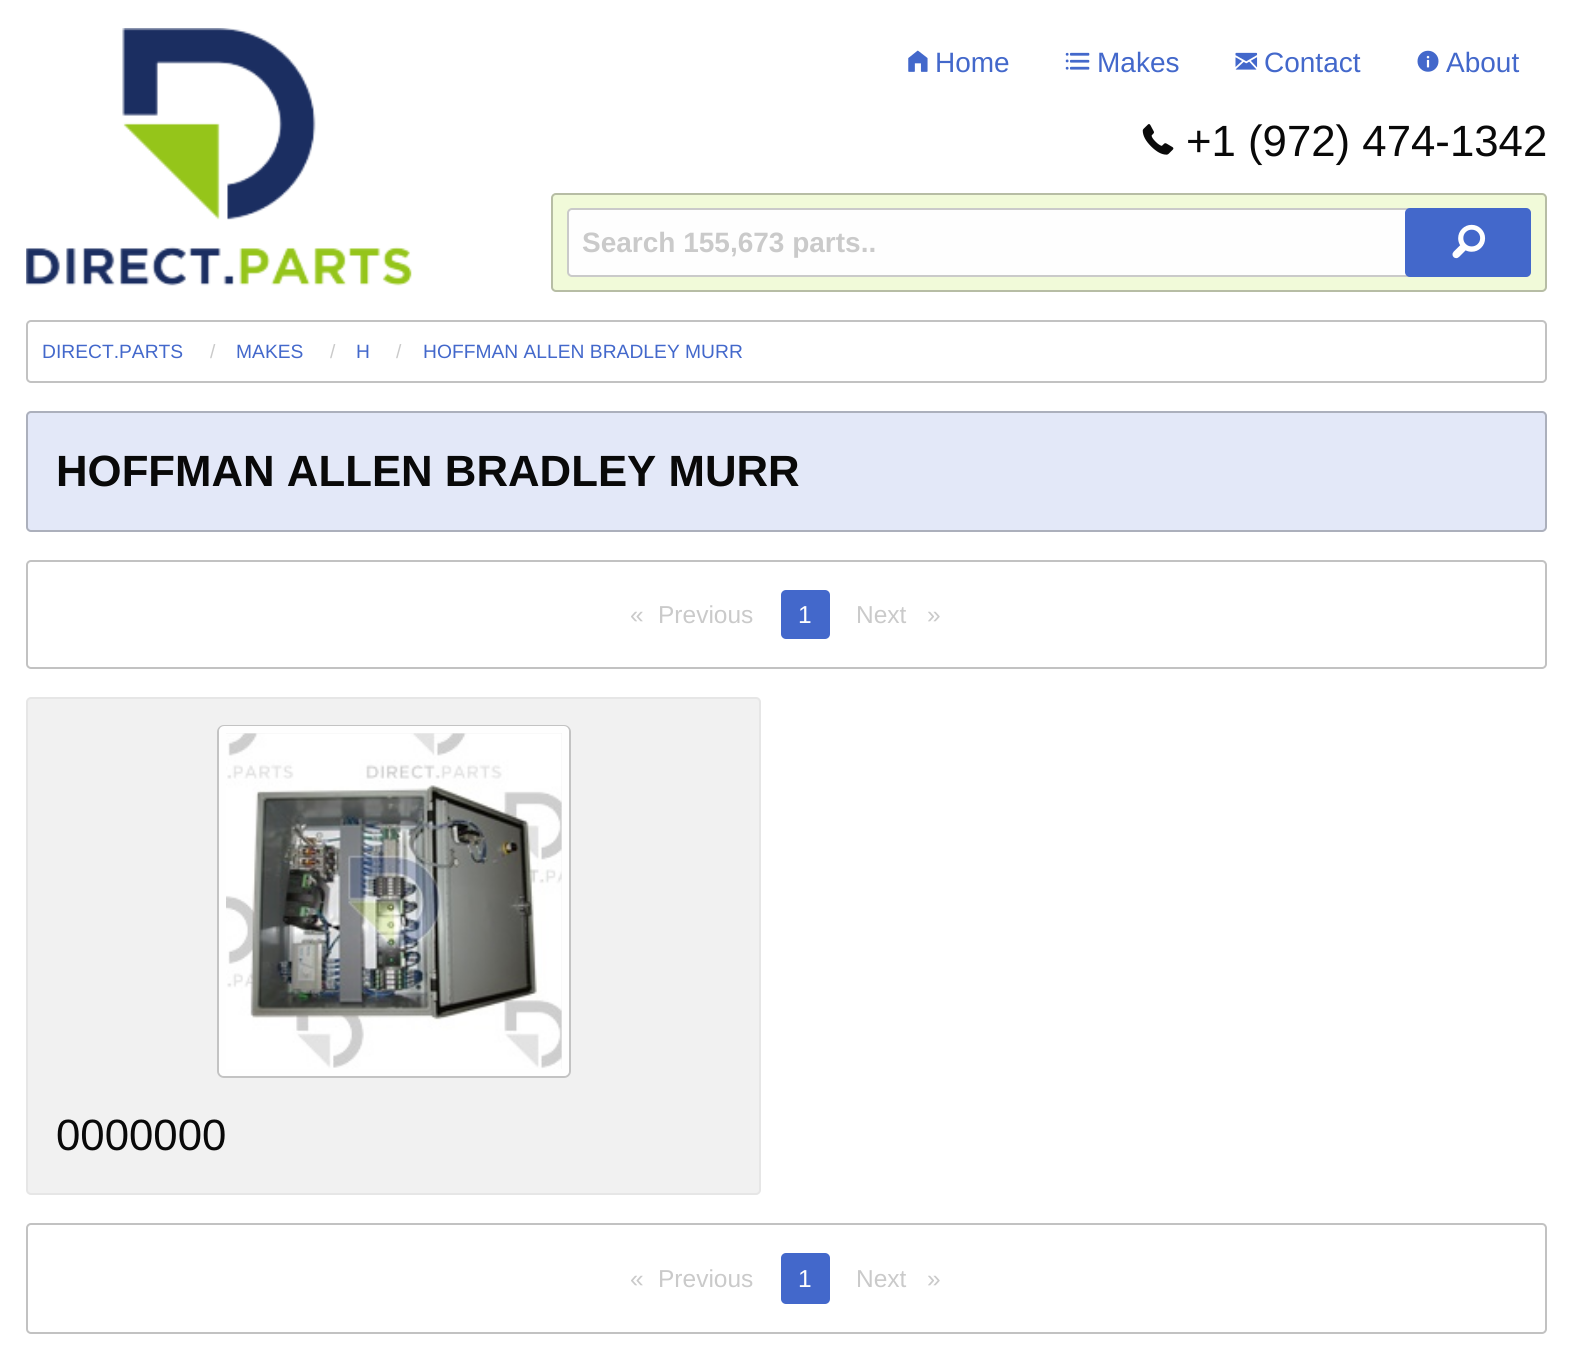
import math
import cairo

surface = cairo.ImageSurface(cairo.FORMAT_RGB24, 1573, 1349)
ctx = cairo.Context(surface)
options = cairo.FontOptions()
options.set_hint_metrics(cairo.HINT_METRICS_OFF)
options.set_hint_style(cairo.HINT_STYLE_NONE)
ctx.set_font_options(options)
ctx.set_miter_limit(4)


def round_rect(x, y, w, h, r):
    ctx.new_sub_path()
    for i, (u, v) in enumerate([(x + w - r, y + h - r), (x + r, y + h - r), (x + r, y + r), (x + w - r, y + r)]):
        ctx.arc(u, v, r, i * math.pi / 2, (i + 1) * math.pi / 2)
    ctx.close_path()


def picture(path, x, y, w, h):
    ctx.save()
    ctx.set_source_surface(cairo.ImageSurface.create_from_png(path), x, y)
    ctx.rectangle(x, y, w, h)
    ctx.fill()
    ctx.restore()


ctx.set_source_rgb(1, 1, 1)
ctx.paint()
picture("img1.png", 26, 28, 386, 258)
picture("img2.png", 908, 50, 20, 22)
ctx.select_font_face("Liberation Sans")
ctx.set_font_size(28)
ctx.set_source_rgb(0.263, 0.408, 0.796)
ctx.move_to(935, 72)
ctx.show_text("Home")
picture("img3.png", 1065, 52, 25, 18)
ctx.move_to(1097, 72)
ctx.show_text("Makes")
picture("img4.png", 1235, 52, 23, 18)
ctx.move_to(1264, 72)
ctx.show_text("Contact")
picture("img5.png", 1417, 50, 22, 22)
ctx.move_to(1446, 72)
ctx.show_text("About")
picture("img6.png", 1142, 124, 32, 31)
ctx.set_font_size(43.75)
ctx.set_source_rgb(0.039, 0.039, 0.039)
ctx.move_to(1186, 156)
ctx.show_text("+1 (972) 474-1342")
ctx.set_source_rgb(0.945, 0.98, 0.851)
round_rect(551, 193, 996, 99, 5)
ctx.fill()
round_rect(552, 194, 994, 97, 4)
ctx.set_source_rgba(0.039, 0.039, 0.039, 0.25)
ctx.stroke()
ctx.set_source_rgb(0.996, 0.996, 0.996)
round_rect(568, 209, 962, 67, 4)
ctx.fill_preserve()
ctx.set_source_rgb(0.792, 0.792, 0.792)
ctx.stroke()
ctx.select_font_face("Liberation Sans", cairo.FONT_SLANT_NORMAL, cairo.FONT_WEIGHT_BOLD)
ctx.set_font_size(28)
ctx.move_to(582, 252)
ctx.show_text("Search 155,673 parts..")
ctx.set_source_rgb(0.263, 0.408, 0.796)
round_rect(1405, 208, 126, 69, 5)
ctx.fill()
picture("img7.png", 1452, 224, 34, 35)
round_rect(27, 321, 1519, 61, 4)
ctx.set_source_rgb(0.761, 0.761, 0.761)
ctx.stroke()
ctx.select_font_face("Liberation Sans")
ctx.set_font_size(19.25)
ctx.set_source_rgb(0.263, 0.408, 0.796)
ctx.move_to(42, 358)
ctx.show_text("DIRECT.PARTS")
ctx.set_source_rgb(0.792, 0.792, 0.792)
ctx.move_to(210, 358)
ctx.show_text("/")
ctx.set_source_rgb(0.263, 0.408, 0.796)
ctx.move_to(236, 358)
ctx.show_text("MAKES")
ctx.set_source_rgb(0.792, 0.792, 0.792)
ctx.move_to(330, 358)
ctx.show_text("/")
ctx.set_source_rgb(0.263, 0.408, 0.796)
ctx.move_to(356, 358)
ctx.show_text("H")
ctx.set_source_rgb(0.792, 0.792, 0.792)
ctx.move_to(396, 358)
ctx.show_text("/")
ctx.set_source_rgb(0.263, 0.408, 0.796)
ctx.move_to(423, 358)
ctx.show_text("HOFFMAN ALLEN BRADLEY MURR")
ctx.set_source_rgb(0.89, 0.91, 0.969)
round_rect(26, 411, 1521, 121, 5)
ctx.fill()
round_rect(27, 412, 1519, 119, 4)
ctx.set_source_rgba(0.039, 0.039, 0.039, 0.25)
ctx.stroke()
ctx.select_font_face("Liberation Sans", cairo.FONT_SLANT_NORMAL, cairo.FONT_WEIGHT_BOLD)
ctx.set_font_size(43.75)
ctx.set_source_rgb(0.039, 0.039, 0.039)
ctx.move_to(56, 486)
ctx.show_text("HOFFMAN ALLEN BRADLEY MURR")
round_rect(27, 561, 1519, 107, 4)
ctx.set_source_rgb(0.761, 0.761, 0.761)
ctx.stroke()
ctx.select_font_face("Liberation Sans")
ctx.set_font_size(24.5)
ctx.set_source_rgb(0.792, 0.792, 0.792)
ctx.move_to(630, 623)
ctx.show_text("«")
ctx.move_to(658, 623)
ctx.show_text("Previous")
ctx.set_source_rgb(0.263, 0.408, 0.796)
round_rect(781, 590, 49, 49, 5)
ctx.fill()
ctx.set_source_rgb(0.996, 0.996, 0.996)
ctx.move_to(798, 623)
ctx.show_text("1")
ctx.set_source_rgb(0.792, 0.792, 0.792)
ctx.move_to(856, 623)
ctx.show_text("Next")
ctx.move_to(927, 623)
ctx.show_text("»")
ctx.set_source_rgb(0.945, 0.945, 0.945)
round_rect(27, 698, 733, 496, 4)
ctx.fill_preserve()
ctx.set_source_rgb(0.902, 0.902, 0.902)
ctx.stroke()
round_rect(218, 726, 352, 351, 6)
ctx.set_source_rgb(0.765, 0.765, 0.765)
ctx.stroke()
round_rect(222.5, 729.5, 343, 343, 1.5)
ctx.set_source_rgb(0.996, 0.996, 0.996)
ctx.set_line_width(7)
ctx.stroke()
picture("img8.png", 226, 733, 336, 336)
ctx.set_font_size(43.75)
ctx.set_source_rgb(0.039, 0.039, 0.039)
ctx.move_to(56, 1150)
ctx.show_text("0000000")
round_rect(27, 1224, 1519, 109, 4)
ctx.set_source_rgb(0.761, 0.761, 0.761)
ctx.set_line_width(2)
ctx.stroke()
ctx.set_font_size(24.5)
ctx.set_source_rgb(0.792, 0.792, 0.792)
ctx.move_to(630, 1287)
ctx.show_text("«")
ctx.move_to(658, 1287)
ctx.show_text("Previous")
ctx.set_source_rgb(0.263, 0.408, 0.796)
round_rect(781, 1253, 49, 51, 5)
ctx.fill()
ctx.set_source_rgb(0.996, 0.996, 0.996)
ctx.move_to(798, 1287)
ctx.show_text("1")
ctx.set_source_rgb(0.792, 0.792, 0.792)
ctx.move_to(856, 1287)
ctx.show_text("Next")
ctx.move_to(927, 1287)
ctx.show_text("»")
surface.write_to_png("page.png")
